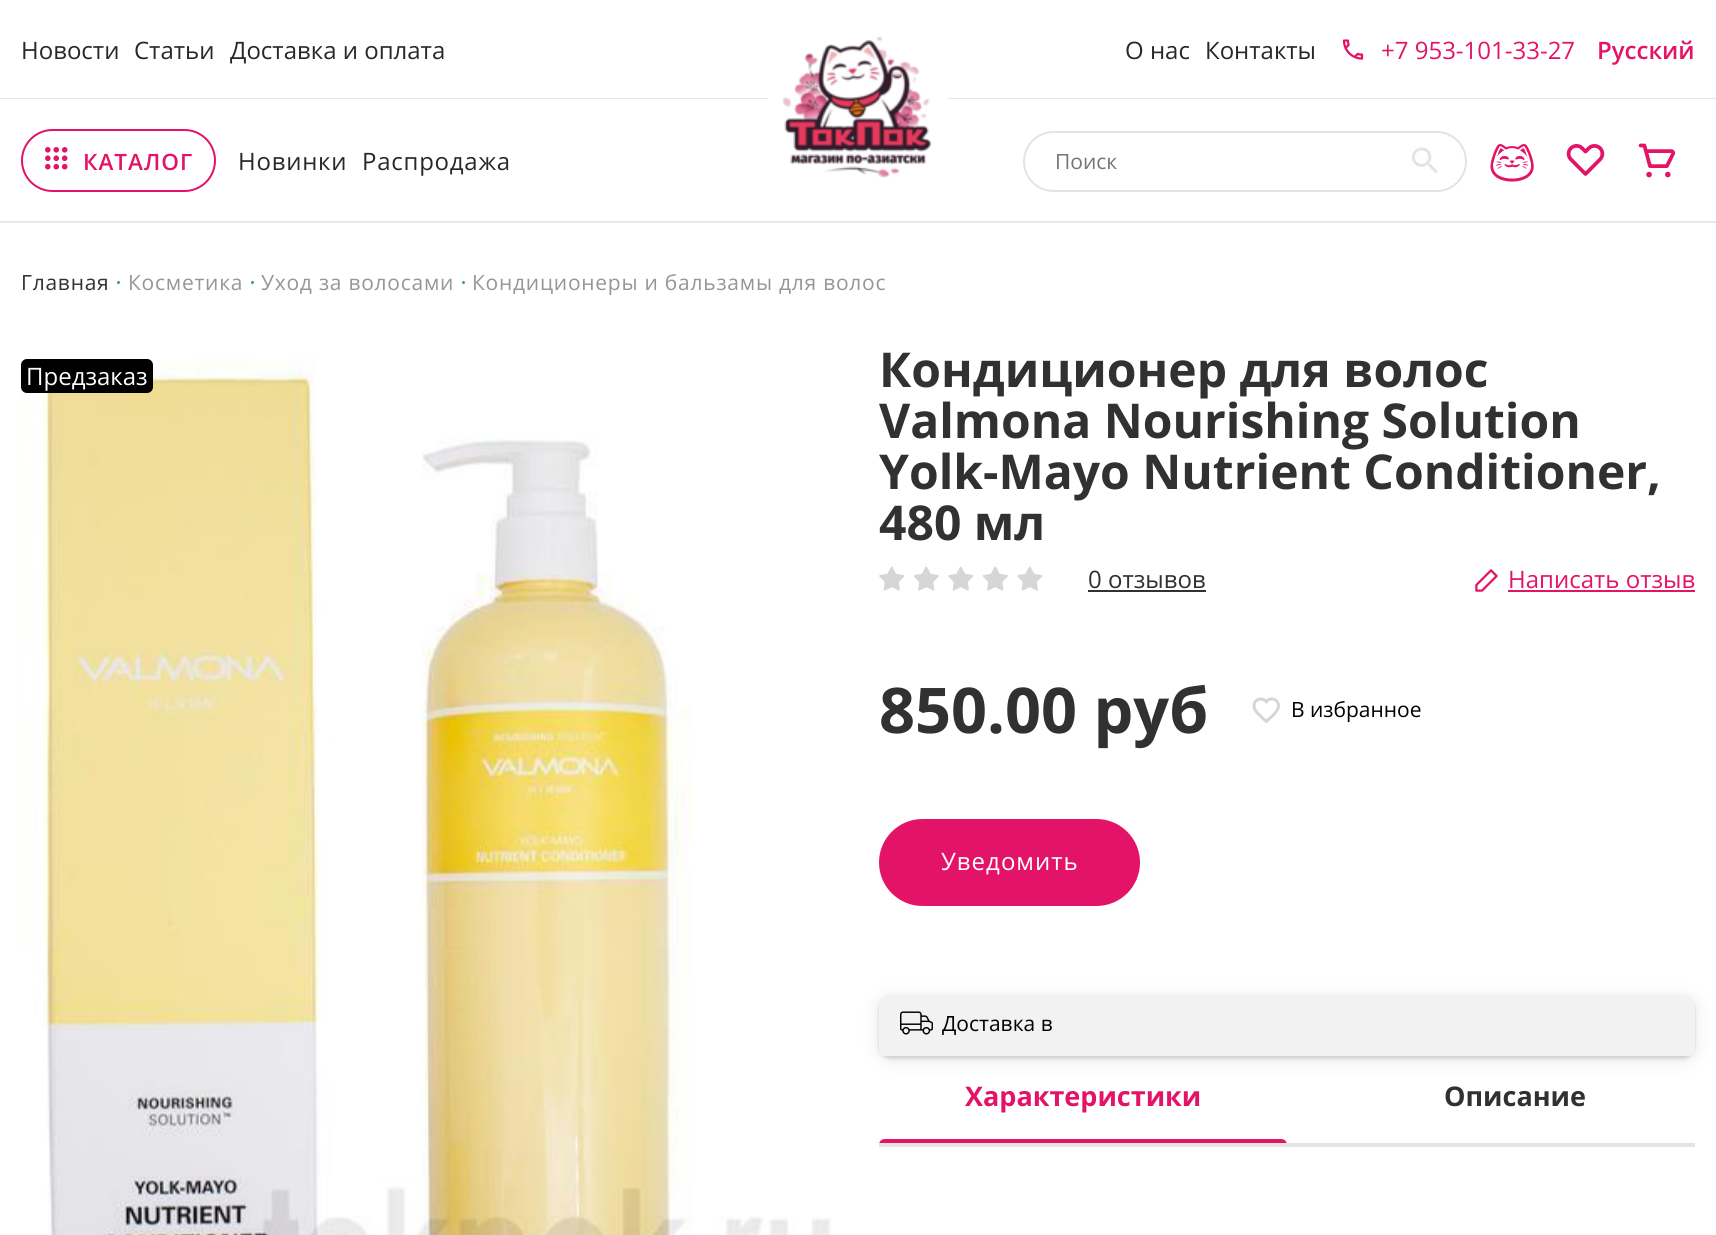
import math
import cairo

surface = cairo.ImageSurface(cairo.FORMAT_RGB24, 1716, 1235)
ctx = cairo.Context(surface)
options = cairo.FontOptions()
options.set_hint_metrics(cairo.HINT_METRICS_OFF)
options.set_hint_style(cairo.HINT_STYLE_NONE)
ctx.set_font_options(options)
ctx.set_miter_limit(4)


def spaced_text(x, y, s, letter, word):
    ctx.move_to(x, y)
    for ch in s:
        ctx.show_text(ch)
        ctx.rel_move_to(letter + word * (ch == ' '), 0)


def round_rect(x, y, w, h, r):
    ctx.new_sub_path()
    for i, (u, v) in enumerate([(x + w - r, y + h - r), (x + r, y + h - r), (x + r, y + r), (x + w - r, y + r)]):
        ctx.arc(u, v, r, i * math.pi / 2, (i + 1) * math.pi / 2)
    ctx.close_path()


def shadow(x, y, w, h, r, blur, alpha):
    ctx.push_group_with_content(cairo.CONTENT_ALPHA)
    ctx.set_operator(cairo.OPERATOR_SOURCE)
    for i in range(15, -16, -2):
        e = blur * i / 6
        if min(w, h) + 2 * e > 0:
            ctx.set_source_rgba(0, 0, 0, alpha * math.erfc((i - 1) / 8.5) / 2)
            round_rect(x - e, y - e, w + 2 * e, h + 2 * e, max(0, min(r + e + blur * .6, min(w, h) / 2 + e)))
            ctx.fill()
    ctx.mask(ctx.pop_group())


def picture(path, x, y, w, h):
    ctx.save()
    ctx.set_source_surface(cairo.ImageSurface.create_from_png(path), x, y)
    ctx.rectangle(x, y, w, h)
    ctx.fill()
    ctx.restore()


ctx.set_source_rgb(1, 1, 1)
ctx.paint()
ctx.set_source_rgb(0.906, 0.906, 0.906)
ctx.rectangle(0, 98, 1716, 1)
ctx.fill()
ctx.select_font_face("Open Sans")
ctx.set_font_size(24)
ctx.set_source_rgb(0.157, 0.157, 0.157)
ctx.move_to(21, 59)
ctx.show_text("Новости")
ctx.move_to(134, 59)
ctx.show_text("Статьи")
ctx.move_to(230, 59)
ctx.show_text("Доставка и оплата")
ctx.move_to(1125, 59)
ctx.show_text("О нас")
ctx.move_to(1205, 59)
ctx.show_text("Контакты")
picture("img1.png", 1342, 39, 22, 21)
ctx.set_source_rgb(0.89, 0.078, 0.404)
ctx.move_to(1381, 59)
ctx.show_text("+7 953-101-33-27")
ctx.select_font_face("Open Sans SemiBold")
ctx.move_to(1597, 59)
ctx.show_text("Русский")
ctx.set_source_rgb(0.906, 0.906, 0.906)
ctx.rectangle(0, 221, 1716, 2)
ctx.fill()
round_rect(22, 130, 193, 61, 30.5)
ctx.set_source_rgb(0.89, 0.078, 0.404)
ctx.stroke()
picture("img2.png", 45, 147, 23, 23)
ctx.set_font_size(22.5)
spaced_text(83, 170, "КАТАЛОГ", 1, 0)
ctx.select_font_face("Open Sans")
ctx.set_font_size(24)
ctx.set_source_rgb(0.157, 0.157, 0.157)
spaced_text(238, 170, "Новинки", 0.75, 0)
spaced_text(362, 170, "Распродажа", 0.75, 0)
picture("img3.png", 768, 36, 180, 142)
round_rect(1024, 132, 442, 59, 29.5)
ctx.set_source_rgb(0.89, 0.89, 0.89)
ctx.stroke()
ctx.set_font_size(21)
ctx.set_source_rgb(0.459, 0.459, 0.459)
ctx.move_to(1055, 169)
ctx.show_text("Поиск")
picture("img4.png", 1412, 147, 26, 26)
picture("img5.png", 1490, 143, 44, 39)
picture("img6.png", 1566, 144, 39, 32)
picture("img7.png", 1638, 143, 38, 35)
ctx.set_source_rgb(0.192, 0.192, 0.192)
spaced_text(21, 290, "Главная", 0.75, 0)
ctx.set_source_rgb(0.212, 0.659, 0.318)
ctx.new_path()
ctx.arc(118.5, 282.5, 1.5, 0, 2 * math.pi)
ctx.fill()
ctx.set_source_rgb(0.588, 0.588, 0.588)
spaced_text(128, 290, "Косметика", 0.75, 0)
ctx.set_source_rgb(0.212, 0.659, 0.318)
ctx.new_path()
ctx.arc(252.5, 282.5, 1.5, 0, 2 * math.pi)
ctx.fill()
ctx.set_source_rgb(0.588, 0.588, 0.588)
spaced_text(261, 290, "Уход за волосами", 0.75, 0)
ctx.set_source_rgb(0.212, 0.659, 0.318)
ctx.new_path()
ctx.arc(463.5, 282.5, 1.5, 0, 2 * math.pi)
ctx.fill()
ctx.set_source_rgb(0.588, 0.588, 0.588)
spaced_text(472, 290, "Кондиционеры и бальзамы для волос", 0.75, 0)
picture("img8.png", 21, 359, 810, 876)
ctx.set_source_rgb(0, 0, 0)
round_rect(21, 359, 132, 34, 6)
ctx.fill()
ctx.set_font_size(24)
ctx.set_source_rgb(1, 1, 1)
ctx.move_to(26, 385)
ctx.show_text("Предзаказ")
ctx.select_font_face("Open Sans", cairo.FONT_SLANT_NORMAL, cairo.FONT_WEIGHT_BOLD)
ctx.set_font_size(48)
ctx.set_source_rgb(0.192, 0.192, 0.192)
ctx.move_to(879, 387)
ctx.show_text("Кондиционер для волос")
ctx.move_to(879, 438)
ctx.show_text("Valmona Nourishing Solution")
ctx.move_to(879, 489)
ctx.show_text("Yolk-Mayo Nutrient Conditioner,")
ctx.move_to(879, 540)
ctx.show_text("480 мл")
picture("img9.png", 879, 566, 26, 25)
picture("img10.png", 914, 566, 25, 25)
picture("img9.png", 948, 566, 26, 25)
picture("img10.png", 983, 566, 25, 25)
picture("img9.png", 1017, 566, 26, 25)
ctx.select_font_face("Open Sans")
ctx.set_font_size(24)
ctx.move_to(1088, 588)
ctx.show_text("0 отзывов")
ctx.rectangle(1088, 590, 118, 2)
ctx.fill()
picture("img11.png", 1475, 569, 23, 23)
ctx.set_source_rgb(0.89, 0.078, 0.404)
ctx.move_to(1508, 588)
ctx.show_text("Написать отзыв")
ctx.rectangle(1508, 590, 187, 2)
ctx.fill()
ctx.select_font_face("Open Sans", cairo.FONT_SLANT_NORMAL, cairo.FONT_WEIGHT_BOLD)
ctx.set_font_size(63)
ctx.set_source_rgb(0.192, 0.192, 0.192)
ctx.move_to(879, 733)
ctx.show_text("850.00 руб")
picture("img12.png", 1252, 697, 28, 27)
ctx.select_font_face("Open Sans")
ctx.set_font_size(21)
ctx.set_source_rgb(0, 0, 0)
ctx.move_to(1291, 717)
ctx.show_text("В избранное")
ctx.set_source_rgb(0.89, 0.078, 0.404)
round_rect(880, 820, 259, 85, 42.5)
ctx.fill_preserve()
ctx.stroke()
ctx.set_font_size(24)
ctx.set_source_rgb(1, 1, 1)
spaced_text(941, 870, "Уведомить", 1, 0)
ctx.set_source_rgb(0, 0, 0)
shadow(879, 998, 816, 61, 11, 12, 0.05)
shadow(879, 998, 816, 61, 11, 6, 0.05)
shadow(879, 998, 816, 61, 11, 3, 0.05)
shadow(879, 998, 816, 61, 11, 1.5, 0.05)
shadow(879, 996, 816, 62, 11, 1, 0.05)
ctx.set_source_rgb(0.949, 0.949, 0.949)
ctx.new_path()
ctx.move_to(890, 995)
ctx.line_to(1684, 995)
ctx.curve_to(1690, 995, 1695, 1000, 1695, 1006)
ctx.line_to(1695, 1056)
ctx.line_to(879, 1056)
ctx.line_to(879, 1006)
ctx.curve_to(879, 1000, 884, 995, 890, 995)
ctx.close_path()
ctx.fill()
picture("img13.png", 900, 1011, 33, 24)
ctx.set_font_size(21)
ctx.set_source_rgb(0, 0, 0)
ctx.move_to(942, 1031)
ctx.show_text("Доставка в")
ctx.select_font_face("Open Sans", cairo.FONT_SLANT_NORMAL, cairo.FONT_WEIGHT_BOLD)
ctx.set_font_size(27)
ctx.set_source_rgb(0.89, 0.078, 0.404)
ctx.move_to(965, 1106)
ctx.show_text("Характеристики")
ctx.new_path()
ctx.move_to(885, 1139)
ctx.line_to(1281, 1139)
ctx.curve_to(1284.5, 1139, 1287, 1141.5, 1287, 1145)
ctx.line_to(1287, 1143)
ctx.line_to(879, 1143)
ctx.line_to(879, 1145)
ctx.curve_to(879, 1141.5, 881.5, 1139, 885, 1139)
ctx.close_path()
ctx.fill()
ctx.set_source_rgb(0.192, 0.192, 0.192)
ctx.move_to(1444, 1106)
ctx.show_text("Описание")
ctx.set_source_rgb(0.894, 0.894, 0.894)
ctx.rectangle(879, 1143, 816, 4)
ctx.fill()
surface.write_to_png("page.png")
